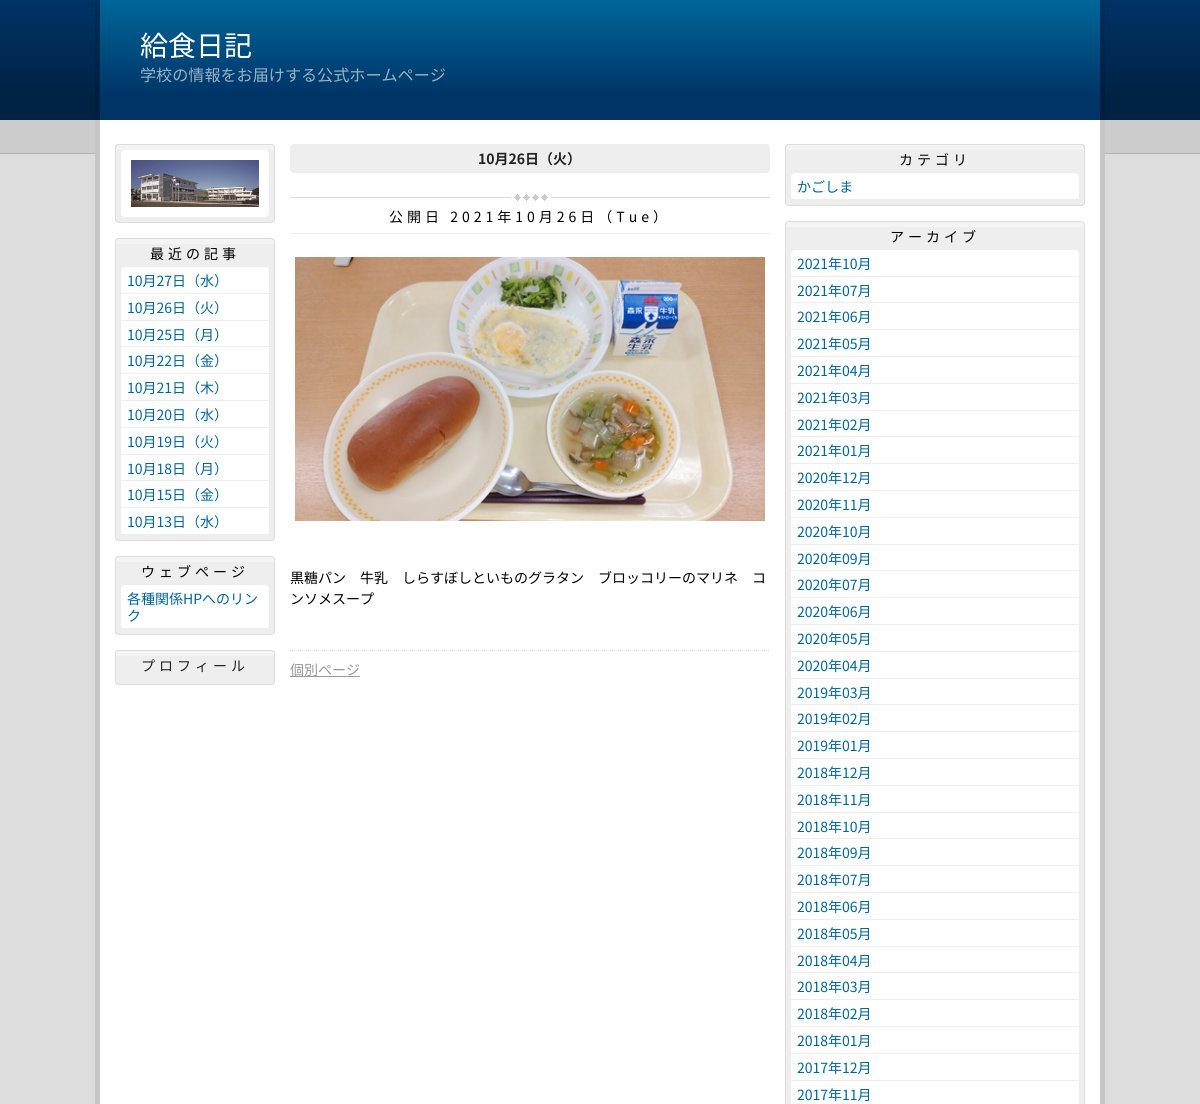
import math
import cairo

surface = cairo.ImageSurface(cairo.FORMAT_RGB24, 1200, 1104)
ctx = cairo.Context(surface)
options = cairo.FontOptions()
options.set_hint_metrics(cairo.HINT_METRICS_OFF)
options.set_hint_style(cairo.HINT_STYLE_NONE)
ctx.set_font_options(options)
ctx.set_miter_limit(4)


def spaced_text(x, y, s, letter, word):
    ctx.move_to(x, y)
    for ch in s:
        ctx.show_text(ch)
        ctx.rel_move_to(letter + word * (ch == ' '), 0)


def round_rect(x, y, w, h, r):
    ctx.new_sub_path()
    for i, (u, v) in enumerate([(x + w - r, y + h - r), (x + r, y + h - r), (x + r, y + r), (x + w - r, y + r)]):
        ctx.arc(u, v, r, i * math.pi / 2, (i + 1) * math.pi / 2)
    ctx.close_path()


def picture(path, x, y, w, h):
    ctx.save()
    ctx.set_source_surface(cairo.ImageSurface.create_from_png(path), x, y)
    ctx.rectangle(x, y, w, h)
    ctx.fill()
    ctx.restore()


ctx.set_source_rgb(0.867, 0.867, 0.867)
ctx.paint()
picture("img1.png", 0, 0, 1200, 154)
picture("img2.png", 95, 0, 1010, 120)
picture("img3.png", 100, 0, 1000, 120)
ctx.select_font_face("Noto Sans JP")
ctx.set_font_size(28)
ctx.set_source_rgb(1, 1, 1)
ctx.move_to(140, 56)
ctx.show_text("給食日記")
ctx.set_font_size(16.1)
ctx.set_source_rgb(0.6, 0.694, 0.773)
ctx.move_to(140, 81)
ctx.show_text("学校の情報をお届けする公式ホームページ")
ctx.set_source_rgb(0.776, 0.776, 0.776)
ctx.rectangle(95, 120, 1010, 984)
ctx.fill()
ctx.set_source_rgb(1, 1, 1)
ctx.rectangle(100, 120, 1000, 984)
ctx.fill()
ctx.set_source_rgb(0.933, 0.933, 0.933)
round_rect(115, 144, 160, 79, 4)
ctx.fill()
ctx.set_source_rgb(0.957, 0.957, 0.957)
ctx.rectangle(115, 145, 160, 5)
ctx.fill()
round_rect(115.5, 144.5, 159, 78, 3.5)
ctx.set_source_rgb(0.867, 0.867, 0.867)
ctx.set_line_width(1)
ctx.stroke()
ctx.set_source_rgb(1, 1, 1)
round_rect(121, 150, 148, 67, 4)
ctx.fill()
picture("img4.png", 131, 160, 128, 47)
ctx.set_source_rgb(0.933, 0.933, 0.933)
round_rect(115, 238, 160, 303, 4)
ctx.fill()
ctx.set_source_rgb(0.957, 0.957, 0.957)
ctx.rectangle(115, 239, 160, 5)
ctx.fill()
round_rect(115.5, 238.5, 159, 302, 3.5)
ctx.set_source_rgb(0.867, 0.867, 0.867)
ctx.stroke()
ctx.set_font_size(14)
ctx.set_source_rgb(0, 0, 0)
spaced_text(150, 259, "最近の記事", 4, 0)
ctx.set_source_rgb(1, 1, 1)
round_rect(121, 267, 148, 268, 4)
ctx.fill()
ctx.set_source_rgb(0.933, 0.933, 0.933)
ctx.rectangle(121, 293, 148, 1)
ctx.fill()
ctx.set_source_rgb(0, 0.4, 0.6)
ctx.move_to(127, 286)
ctx.show_text("10月27日（水）")
ctx.set_source_rgb(0.933, 0.933, 0.933)
ctx.rectangle(121, 320, 148, 1)
ctx.fill()
ctx.set_source_rgb(0, 0.4, 0.6)
ctx.move_to(127, 313)
ctx.show_text("10月26日（火）")
ctx.set_source_rgb(0.933, 0.933, 0.933)
ctx.rectangle(121, 346, 148, 1)
ctx.fill()
ctx.set_source_rgb(0, 0.4, 0.6)
ctx.move_to(127, 340)
ctx.show_text("10月25日（月）")
ctx.set_source_rgb(0.933, 0.933, 0.933)
ctx.rectangle(121, 373, 148, 1)
ctx.fill()
ctx.set_source_rgb(0, 0.4, 0.6)
ctx.move_to(127, 366)
ctx.show_text("10月22日（金）")
ctx.set_source_rgb(0.933, 0.933, 0.933)
ctx.rectangle(121, 400, 148, 1)
ctx.fill()
ctx.set_source_rgb(0, 0.4, 0.6)
ctx.move_to(127, 393)
ctx.show_text("10月21日（木）")
ctx.set_source_rgb(0.933, 0.933, 0.933)
ctx.rectangle(121, 427, 148, 1)
ctx.fill()
ctx.set_source_rgb(0, 0.4, 0.6)
ctx.move_to(127, 420)
ctx.show_text("10月20日（水）")
ctx.set_source_rgb(0.933, 0.933, 0.933)
ctx.rectangle(121, 454, 148, 1)
ctx.fill()
ctx.set_source_rgb(0, 0.4, 0.6)
ctx.move_to(127, 447)
ctx.show_text("10月19日（火）")
ctx.set_source_rgb(0.933, 0.933, 0.933)
ctx.rectangle(121, 480, 148, 1)
ctx.fill()
ctx.set_source_rgb(0, 0.4, 0.6)
ctx.move_to(127, 474)
ctx.show_text("10月18日（月）")
ctx.set_source_rgb(0.933, 0.933, 0.933)
ctx.rectangle(121, 507, 148, 1)
ctx.fill()
ctx.set_source_rgb(0, 0.4, 0.6)
ctx.move_to(127, 500)
ctx.show_text("10月15日（金）")
ctx.set_source_rgb(0.933, 0.933, 0.933)
ctx.rectangle(121, 534, 148, 1)
ctx.fill()
ctx.set_source_rgb(0, 0.4, 0.6)
ctx.move_to(127, 527)
ctx.show_text("10月13日（水）")
ctx.set_source_rgb(0.933, 0.933, 0.933)
round_rect(115, 556, 160, 79, 4)
ctx.fill()
ctx.set_source_rgb(0.957, 0.957, 0.957)
ctx.rectangle(115, 557, 160, 5)
ctx.fill()
round_rect(115.5, 556.5, 159, 78, 3.5)
ctx.set_source_rgb(0.867, 0.867, 0.867)
ctx.stroke()
ctx.set_source_rgb(0, 0, 0)
spaced_text(141, 577, "ウェブページ", 4, 0)
ctx.set_source_rgb(1, 1, 1)
round_rect(121, 585, 148, 44, 4)
ctx.fill()
ctx.set_source_rgb(0.933, 0.933, 0.933)
ctx.rectangle(121, 628, 148, 1)
ctx.fill()
ctx.set_source_rgb(0, 0.4, 0.6)
ctx.move_to(127, 604)
ctx.show_text("各種関係HPへのリン")
ctx.move_to(127, 621)
ctx.show_text("ク")
ctx.set_source_rgb(0.933, 0.933, 0.933)
round_rect(115, 650, 160, 35, 4)
ctx.fill()
ctx.set_source_rgb(0.957, 0.957, 0.957)
ctx.rectangle(115, 651, 160, 5)
ctx.fill()
round_rect(115.5, 650.5, 159, 34, 3.5)
ctx.set_source_rgb(0.867, 0.867, 0.867)
ctx.stroke()
ctx.set_source_rgb(0.133, 0.133, 0.133)
spaced_text(141, 671, "プロフィール", 4, 0)
ctx.set_source_rgb(0.933, 0.933, 0.933)
round_rect(290, 144, 480, 29, 4)
ctx.fill()
ctx.select_font_face("Noto Sans JP", cairo.FONT_SLANT_NORMAL, cairo.FONT_WEIGHT_BOLD)
ctx.set_source_rgb(0.133, 0.133, 0.133)
ctx.move_to(478, 164)
ctx.show_text("10月26日（火）")
picture("img5.png", 290, 194, 480, 40)
ctx.select_font_face("Noto Sans JP")
ctx.set_source_rgb(0, 0, 0)
spaced_text(389, 222, "公開日 2021年10月26日（Tue）", 4, 0)
picture("img6.png", 295, 257, 470, 264)
ctx.move_to(290, 583)
ctx.show_text("黒糖パン　牛乳　しらすぼしといものグラタン　ブロッコリーのマリネ　コ")
ctx.move_to(290, 604)
ctx.show_text("ンソメスープ")
ctx.new_path()
ctx.move_to(290, 650.5)
ctx.line_to(770, 650.5)
ctx.set_source_rgb(0.867, 0.867, 0.867)
ctx.set_dash([1, 1])
ctx.stroke()
ctx.set_source_rgb(0.6, 0.6, 0.6)
ctx.rectangle(290, 676, 70, 1)
ctx.fill()
ctx.move_to(290, 675)
ctx.show_text("個別ページ")
ctx.set_source_rgb(0.933, 0.933, 0.933)
round_rect(785, 144, 300, 62, 4)
ctx.fill()
ctx.set_source_rgb(0.957, 0.957, 0.957)
ctx.rectangle(785, 145, 300, 5)
ctx.fill()
round_rect(785.5, 144.5, 299, 61, 3.5)
ctx.set_source_rgb(0.867, 0.867, 0.867)
ctx.set_dash([])
ctx.stroke()
ctx.set_source_rgb(0, 0, 0)
spaced_text(899, 165, "カテゴリ", 4, 0)
ctx.set_source_rgb(1, 1, 1)
round_rect(791, 173, 288, 27, 4)
ctx.fill()
ctx.set_source_rgb(0.933, 0.933, 0.933)
ctx.rectangle(791, 199, 288, 1)
ctx.fill()
ctx.set_source_rgb(0, 0.4, 0.6)
ctx.move_to(797, 192)
ctx.show_text("かごしま")
ctx.set_source_rgb(0.933, 0.933, 0.933)
round_rect(785, 221, 300, 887, 4)
ctx.fill()
ctx.set_source_rgb(0.957, 0.957, 0.957)
ctx.rectangle(785, 222, 300, 5)
ctx.fill()
round_rect(785.5, 221.5, 299, 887, 3.5)
ctx.set_source_rgb(0.867, 0.867, 0.867)
ctx.stroke()
ctx.set_source_rgb(0, 0, 0)
spaced_text(890, 242, "アーカイブ", 4, 0)
ctx.set_source_rgb(1, 1, 1)
round_rect(791, 250, 288, 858, 4)
ctx.fill()
ctx.set_source_rgb(0.933, 0.933, 0.933)
ctx.rectangle(791, 276, 288, 1)
ctx.fill()
ctx.set_source_rgb(0, 0.4, 0.6)
ctx.move_to(797, 269)
ctx.show_text("2021年10月")
ctx.set_source_rgb(0.933, 0.933, 0.933)
ctx.rectangle(791, 302, 288, 1)
ctx.fill()
ctx.set_source_rgb(0, 0.4, 0.6)
ctx.move_to(797, 296)
ctx.show_text("2021年07月")
ctx.set_source_rgb(0.933, 0.933, 0.933)
ctx.rectangle(791, 329, 288, 1)
ctx.fill()
ctx.set_source_rgb(0, 0.4, 0.6)
ctx.move_to(797, 322)
ctx.show_text("2021年06月")
ctx.set_source_rgb(0.933, 0.933, 0.933)
ctx.rectangle(791, 356, 288, 1)
ctx.fill()
ctx.set_source_rgb(0, 0.4, 0.6)
ctx.move_to(797, 349)
ctx.show_text("2021年05月")
ctx.set_source_rgb(0.933, 0.933, 0.933)
ctx.rectangle(791, 383, 288, 1)
ctx.fill()
ctx.set_source_rgb(0, 0.4, 0.6)
ctx.move_to(797, 376)
ctx.show_text("2021年04月")
ctx.set_source_rgb(0.933, 0.933, 0.933)
ctx.rectangle(791, 410, 288, 1)
ctx.fill()
ctx.set_source_rgb(0, 0.4, 0.6)
ctx.move_to(797, 403)
ctx.show_text("2021年03月")
ctx.set_source_rgb(0.933, 0.933, 0.933)
ctx.rectangle(791, 436, 288, 1)
ctx.fill()
ctx.set_source_rgb(0, 0.4, 0.6)
ctx.move_to(797, 430)
ctx.show_text("2021年02月")
ctx.set_source_rgb(0.933, 0.933, 0.933)
ctx.rectangle(791, 463, 288, 1)
ctx.fill()
ctx.set_source_rgb(0, 0.4, 0.6)
ctx.move_to(797, 456)
ctx.show_text("2021年01月")
ctx.set_source_rgb(0.933, 0.933, 0.933)
ctx.rectangle(791, 490, 288, 1)
ctx.fill()
ctx.set_source_rgb(0, 0.4, 0.6)
ctx.move_to(797, 483)
ctx.show_text("2020年12月")
ctx.set_source_rgb(0.933, 0.933, 0.933)
ctx.rectangle(791, 517, 288, 1)
ctx.fill()
ctx.set_source_rgb(0, 0.4, 0.6)
ctx.move_to(797, 510)
ctx.show_text("2020年11月")
ctx.set_source_rgb(0.933, 0.933, 0.933)
ctx.rectangle(791, 544, 288, 1)
ctx.fill()
ctx.set_source_rgb(0, 0.4, 0.6)
ctx.move_to(797, 537)
ctx.show_text("2020年10月")
ctx.set_source_rgb(0.933, 0.933, 0.933)
ctx.rectangle(791, 570, 288, 1)
ctx.fill()
ctx.set_source_rgb(0, 0.4, 0.6)
ctx.move_to(797, 564)
ctx.show_text("2020年09月")
ctx.set_source_rgb(0.933, 0.933, 0.933)
ctx.rectangle(791, 597, 288, 1)
ctx.fill()
ctx.set_source_rgb(0, 0.4, 0.6)
ctx.move_to(797, 590)
ctx.show_text("2020年07月")
ctx.set_source_rgb(0.933, 0.933, 0.933)
ctx.rectangle(791, 624, 288, 1)
ctx.fill()
ctx.set_source_rgb(0, 0.4, 0.6)
ctx.move_to(797, 617)
ctx.show_text("2020年06月")
ctx.set_source_rgb(0.933, 0.933, 0.933)
ctx.rectangle(791, 651, 288, 1)
ctx.fill()
ctx.set_source_rgb(0, 0.4, 0.6)
ctx.move_to(797, 644)
ctx.show_text("2020年05月")
ctx.set_source_rgb(0.933, 0.933, 0.933)
ctx.rectangle(791, 678, 288, 1)
ctx.fill()
ctx.set_source_rgb(0, 0.4, 0.6)
ctx.move_to(797, 671)
ctx.show_text("2020年04月")
ctx.set_source_rgb(0.933, 0.933, 0.933)
ctx.rectangle(791, 704, 288, 1)
ctx.fill()
ctx.set_source_rgb(0, 0.4, 0.6)
ctx.move_to(797, 698)
ctx.show_text("2019年03月")
ctx.set_source_rgb(0.933, 0.933, 0.933)
ctx.rectangle(791, 731, 288, 1)
ctx.fill()
ctx.set_source_rgb(0, 0.4, 0.6)
ctx.move_to(797, 724)
ctx.show_text("2019年02月")
ctx.set_source_rgb(0.933, 0.933, 0.933)
ctx.rectangle(791, 758, 288, 1)
ctx.fill()
ctx.set_source_rgb(0, 0.4, 0.6)
ctx.move_to(797, 751)
ctx.show_text("2019年01月")
ctx.set_source_rgb(0.933, 0.933, 0.933)
ctx.rectangle(791, 785, 288, 1)
ctx.fill()
ctx.set_source_rgb(0, 0.4, 0.6)
ctx.move_to(797, 778)
ctx.show_text("2018年12月")
ctx.set_source_rgb(0.933, 0.933, 0.933)
ctx.rectangle(791, 812, 288, 1)
ctx.fill()
ctx.set_source_rgb(0, 0.4, 0.6)
ctx.move_to(797, 805)
ctx.show_text("2018年11月")
ctx.set_source_rgb(0.933, 0.933, 0.933)
ctx.rectangle(791, 838, 288, 1)
ctx.fill()
ctx.set_source_rgb(0, 0.4, 0.6)
ctx.move_to(797, 832)
ctx.show_text("2018年10月")
ctx.set_source_rgb(0.933, 0.933, 0.933)
ctx.rectangle(791, 865, 288, 1)
ctx.fill()
ctx.set_source_rgb(0, 0.4, 0.6)
ctx.move_to(797, 858)
ctx.show_text("2018年09月")
ctx.set_source_rgb(0.933, 0.933, 0.933)
ctx.rectangle(791, 892, 288, 1)
ctx.fill()
ctx.set_source_rgb(0, 0.4, 0.6)
ctx.move_to(797, 885)
ctx.show_text("2018年07月")
ctx.set_source_rgb(0.933, 0.933, 0.933)
ctx.rectangle(791, 919, 288, 1)
ctx.fill()
ctx.set_source_rgb(0, 0.4, 0.6)
ctx.move_to(797, 912)
ctx.show_text("2018年06月")
ctx.set_source_rgb(0.933, 0.933, 0.933)
ctx.rectangle(791, 946, 288, 1)
ctx.fill()
ctx.set_source_rgb(0, 0.4, 0.6)
ctx.move_to(797, 939)
ctx.show_text("2018年05月")
ctx.set_source_rgb(0.933, 0.933, 0.933)
ctx.rectangle(791, 972, 288, 1)
ctx.fill()
ctx.set_source_rgb(0, 0.4, 0.6)
ctx.move_to(797, 966)
ctx.show_text("2018年04月")
ctx.set_source_rgb(0.933, 0.933, 0.933)
ctx.rectangle(791, 999, 288, 1)
ctx.fill()
ctx.set_source_rgb(0, 0.4, 0.6)
ctx.move_to(797, 992)
ctx.show_text("2018年03月")
ctx.set_source_rgb(0.933, 0.933, 0.933)
ctx.rectangle(791, 1026, 288, 1)
ctx.fill()
ctx.set_source_rgb(0, 0.4, 0.6)
ctx.move_to(797, 1019)
ctx.show_text("2018年02月")
ctx.set_source_rgb(0.933, 0.933, 0.933)
ctx.rectangle(791, 1053, 288, 1)
ctx.fill()
ctx.set_source_rgb(0, 0.4, 0.6)
ctx.move_to(797, 1046)
ctx.show_text("2018年01月")
ctx.set_source_rgb(0.933, 0.933, 0.933)
ctx.rectangle(791, 1080, 288, 1)
ctx.fill()
ctx.set_source_rgb(0, 0.4, 0.6)
ctx.move_to(797, 1073)
ctx.show_text("2017年12月")
ctx.move_to(797, 1100)
ctx.show_text("2017年11月")
surface.write_to_png("page.png")
